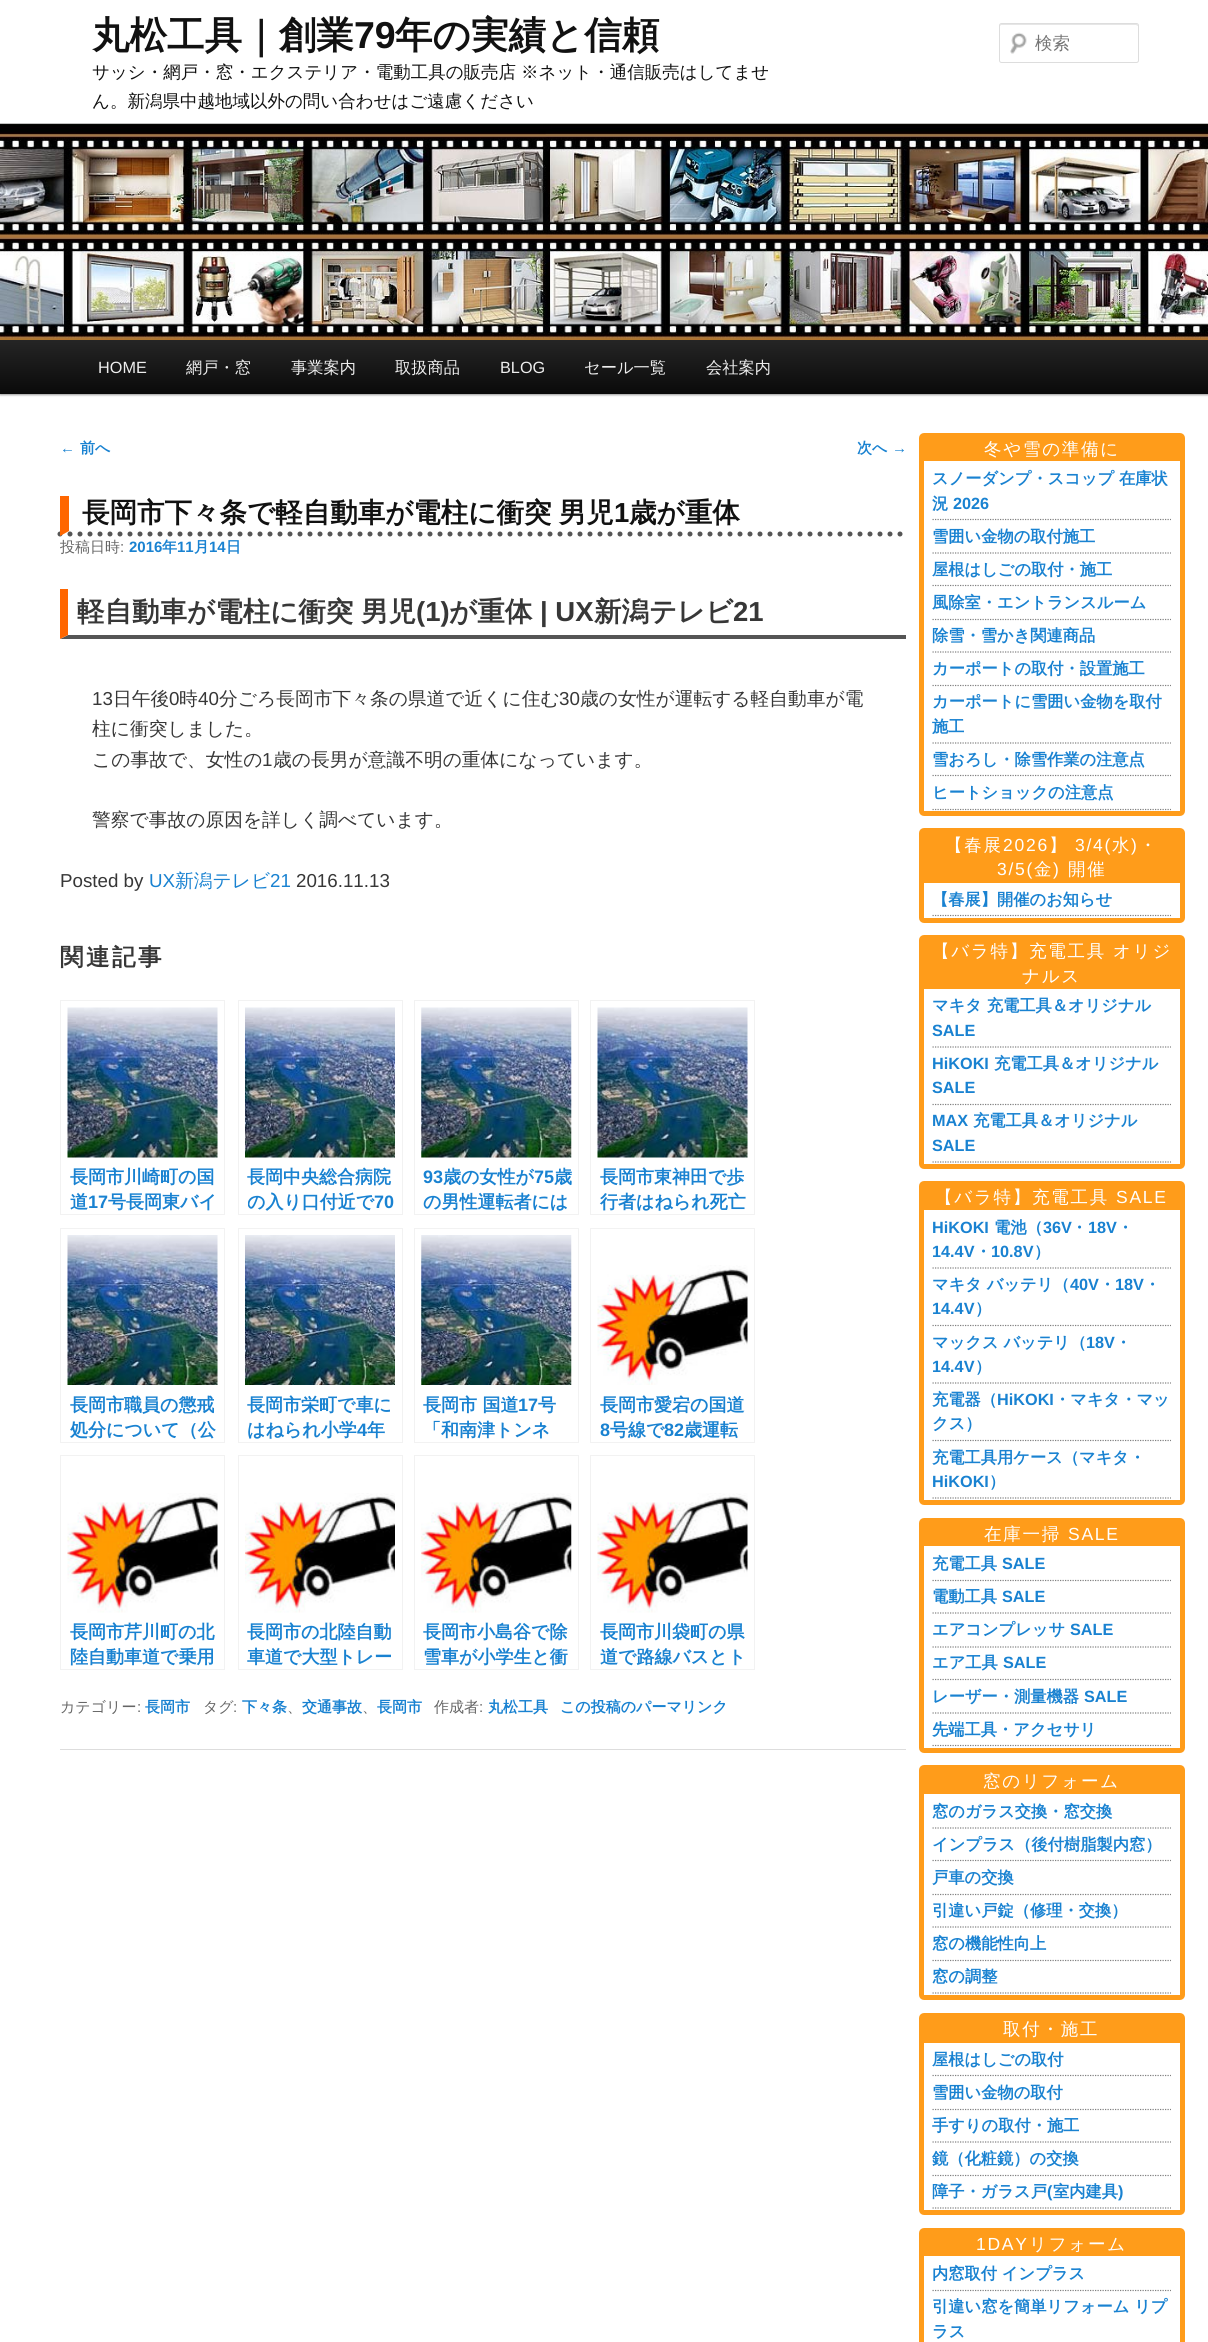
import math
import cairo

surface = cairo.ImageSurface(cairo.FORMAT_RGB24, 1208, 2342)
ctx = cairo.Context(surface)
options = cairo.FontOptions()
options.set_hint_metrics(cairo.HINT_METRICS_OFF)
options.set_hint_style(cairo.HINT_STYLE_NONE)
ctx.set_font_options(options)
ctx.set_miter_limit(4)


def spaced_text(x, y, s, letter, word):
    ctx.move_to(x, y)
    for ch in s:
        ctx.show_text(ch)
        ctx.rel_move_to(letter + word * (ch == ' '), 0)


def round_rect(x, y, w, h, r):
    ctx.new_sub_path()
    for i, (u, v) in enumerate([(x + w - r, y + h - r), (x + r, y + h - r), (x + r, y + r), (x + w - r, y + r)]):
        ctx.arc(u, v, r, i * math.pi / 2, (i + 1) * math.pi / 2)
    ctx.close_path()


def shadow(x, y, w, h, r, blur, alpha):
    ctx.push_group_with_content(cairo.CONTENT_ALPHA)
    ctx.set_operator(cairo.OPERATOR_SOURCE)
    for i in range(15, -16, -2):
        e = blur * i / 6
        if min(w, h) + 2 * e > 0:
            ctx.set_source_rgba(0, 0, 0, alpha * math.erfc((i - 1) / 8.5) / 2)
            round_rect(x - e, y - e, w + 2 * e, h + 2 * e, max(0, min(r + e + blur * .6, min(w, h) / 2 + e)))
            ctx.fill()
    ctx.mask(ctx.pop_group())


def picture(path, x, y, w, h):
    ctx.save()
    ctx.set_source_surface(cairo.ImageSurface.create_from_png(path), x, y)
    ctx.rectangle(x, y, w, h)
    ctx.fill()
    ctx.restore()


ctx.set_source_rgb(1, 1, 1)
ctx.paint()
ctx.select_font_face("WenQuanYi Zen Hei", cairo.FONT_SLANT_NORMAL, cairo.FONT_WEIGHT_BOLD)
ctx.set_font_size(37.5)
ctx.set_source_rgb(0.067, 0.067, 0.067)
ctx.move_to(92, 48)
ctx.show_text("丸松工具｜創業")
ctx.select_font_face("Liberation Sans", cairo.FONT_SLANT_NORMAL, cairo.FONT_WEIGHT_BOLD)
ctx.move_to(354, 48)
ctx.show_text("79")
ctx.select_font_face("WenQuanYi Zen Hei", cairo.FONT_SLANT_NORMAL, cairo.FONT_WEIGHT_BOLD)
ctx.move_to(395, 48)
ctx.show_text("年の実績と信頼")
ctx.select_font_face("WenQuanYi Zen Hei Medium")
ctx.set_font_size(17.5)
ctx.move_to(92, 78)
ctx.show_text("サッシ・網戸・窓・エクステリア・電動工具の販売店")
ctx.move_to(521, 78)
ctx.show_text("※ネット・通信販売はしてませ")
ctx.move_to(92, 107)
ctx.show_text("ん。新潟県中越地域以外の問い合わせはご遠慮ください")
picture("img1.png", 1010, 32, 17, 22)
ctx.set_source_rgb(0.902, 0.902, 0.902)
ctx.new_path()
ctx.move_to(1001, 25)
ctx.line_to(1136, 25)
ctx.line_to(1138, 26)
ctx.curve_to(1138, 25, 1138, 24, 1137, 24)
ctx.line_to(1001, 24)
ctx.curve_to(1000, 24, 1000, 25, 1000, 26)
ctx.close_path()
ctx.fill()
round_rect(999.5, 23.5, 139, 39, 2)
ctx.set_source_rgb(0.867, 0.867, 0.867)
ctx.set_line_width(1)
ctx.stroke()
ctx.set_source_rgb(0.459, 0.459, 0.459)
ctx.move_to(1035, 49)
ctx.show_text("検索")
ctx.set_source_rgb(0, 0, 0)
shadow(0, 341, 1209, 54, 0, 1, 0.4)
picture("img2.png", 0, 123, 1208, 217)
gradient = cairo.LinearGradient(604, 340, 604, 394)
gradient.add_color_stop_rgba(0, 0.145, 0.145, 0.145, 1)
gradient.add_color_stop_rgba(1, 0.039, 0.039, 0.039, 1)
ctx.set_source(gradient)
ctx.rectangle(0, 340, 1208, 54)
ctx.fill()
ctx.select_font_face("Liberation Sans")
ctx.set_font_size(16.25)
ctx.set_source_rgb(0.933, 0.933, 0.933)
ctx.move_to(98, 373)
ctx.show_text("HOME")
ctx.select_font_face("WenQuanYi Zen Hei Medium")
ctx.move_to(186, 373)
ctx.show_text("網戸・窓")
ctx.move_to(291, 373)
ctx.show_text("事業案内")
ctx.move_to(395, 373)
ctx.show_text("取扱商品")
ctx.select_font_face("Liberation Sans")
ctx.move_to(500, 373)
ctx.show_text("BLOG")
ctx.select_font_face("WenQuanYi Zen Hei Medium")
ctx.move_to(584, 373)
ctx.show_text("セール一覧")
ctx.move_to(706, 373)
ctx.show_text("会社案内")
ctx.select_font_face("Liberation Sans")
ctx.set_font_size(15)
ctx.set_source_rgb(0.098, 0.51, 0.82)
ctx.move_to(60, 453)
ctx.show_text("←")
ctx.select_font_face("WenQuanYi Zen Hei", cairo.FONT_SLANT_NORMAL, cairo.FONT_WEIGHT_BOLD)
ctx.move_to(80, 453)
ctx.show_text("前へ")
ctx.move_to(857, 453)
ctx.show_text("次へ")
ctx.select_font_face("Liberation Sans")
ctx.move_to(892, 453)
ctx.show_text("→")
ctx.set_source_rgb(0.867, 0.867, 0.867)
ctx.rectangle(60, 1749, 846, 1)
ctx.fill()
ctx.new_path()
ctx.move_to(60, 534)
ctx.line_to(906, 534)
ctx.set_source_rgb(0.333, 0.333, 0.333)
ctx.set_line_width(5)
ctx.set_line_cap(cairo.LINE_CAP_ROUND)
ctx.set_dash([0, 10])
ctx.stroke()
ctx.set_source_rgb(1, 0.4, 0)
ctx.new_path()
ctx.move_to(60, 536)
ctx.line_to(60, 496)
ctx.line_to(69, 496)
ctx.line_to(69, 531)
ctx.close_path()
ctx.fill()
ctx.select_font_face("WenQuanYi Zen Hei", cairo.FONT_SLANT_NORMAL, cairo.FONT_WEIGHT_BOLD)
ctx.set_font_size(27.5)
ctx.set_source_rgb(0.067, 0.067, 0.067)
spaced_text(82, 522, "長岡市下々条で軽自動車が電柱に衝突 男児", 0, -1)
ctx.select_font_face("Liberation Sans", cairo.FONT_SLANT_NORMAL, cairo.FONT_WEIGHT_BOLD)
ctx.move_to(614, 522)
ctx.show_text("1")
ctx.select_font_face("WenQuanYi Zen Hei", cairo.FONT_SLANT_NORMAL, cairo.FONT_WEIGHT_BOLD)
ctx.move_to(629, 522)
ctx.show_text("歳が重体")
ctx.select_font_face("WenQuanYi Zen Hei Medium")
ctx.set_font_size(15)
ctx.set_source_rgb(0.4, 0.4, 0.4)
ctx.move_to(60, 552)
ctx.show_text("投稿日時")
ctx.select_font_face("Liberation Sans")
ctx.move_to(120, 552)
ctx.show_text(":")
ctx.select_font_face("Liberation Sans", cairo.FONT_SLANT_NORMAL, cairo.FONT_WEIGHT_BOLD)
ctx.set_source_rgb(0.098, 0.51, 0.82)
ctx.move_to(129, 552)
ctx.show_text("2016")
ctx.select_font_face("WenQuanYi Zen Hei", cairo.FONT_SLANT_NORMAL, cairo.FONT_WEIGHT_BOLD)
ctx.move_to(162, 552)
ctx.show_text("年")
ctx.select_font_face("Liberation Sans", cairo.FONT_SLANT_NORMAL, cairo.FONT_WEIGHT_BOLD)
ctx.move_to(177, 552)
ctx.show_text("11")
ctx.select_font_face("WenQuanYi Zen Hei", cairo.FONT_SLANT_NORMAL, cairo.FONT_WEIGHT_BOLD)
ctx.move_to(194, 552)
ctx.show_text("月")
ctx.select_font_face("Liberation Sans", cairo.FONT_SLANT_NORMAL, cairo.FONT_WEIGHT_BOLD)
ctx.move_to(209, 552)
ctx.show_text("14")
ctx.select_font_face("WenQuanYi Zen Hei", cairo.FONT_SLANT_NORMAL, cairo.FONT_WEIGHT_BOLD)
ctx.move_to(226, 552)
ctx.show_text("日")
ctx.set_source_rgb(0.333, 0.333, 0.333)
ctx.new_path()
ctx.move_to(906, 639)
ctx.line_to(60, 639)
ctx.line_to(68, 635)
ctx.line_to(906, 635)
ctx.close_path()
ctx.fill()
ctx.set_source_rgb(1, 0.4, 0)
ctx.new_path()
ctx.move_to(60, 639)
ctx.line_to(60, 589)
ctx.line_to(68, 589)
ctx.line_to(68, 635)
ctx.close_path()
ctx.fill()
ctx.set_font_size(27.5)
ctx.set_source_rgb(0.216, 0.216, 0.216)
ctx.move_to(77, 621)
ctx.show_text("軽自動車が電柱に衝突")
ctx.move_to(361, 621)
ctx.show_text("男児")
ctx.select_font_face("Liberation Sans", cairo.FONT_SLANT_NORMAL, cairo.FONT_WEIGHT_BOLD)
ctx.move_to(416, 621)
ctx.show_text("(1)")
ctx.select_font_face("WenQuanYi Zen Hei", cairo.FONT_SLANT_NORMAL, cairo.FONT_WEIGHT_BOLD)
ctx.move_to(449, 621)
ctx.show_text("が重体")
ctx.select_font_face("Liberation Sans", cairo.FONT_SLANT_NORMAL, cairo.FONT_WEIGHT_BOLD)
ctx.move_to(540, 621)
ctx.show_text("| UX")
ctx.select_font_face("WenQuanYi Zen Hei", cairo.FONT_SLANT_NORMAL, cairo.FONT_WEIGHT_BOLD)
ctx.move_to(594, 621)
ctx.show_text("新潟テレビ")
ctx.select_font_face("Liberation Sans", cairo.FONT_SLANT_NORMAL, cairo.FONT_WEIGHT_BOLD)
ctx.move_to(733, 621)
ctx.show_text("21")
ctx.select_font_face("Liberation Sans")
ctx.set_font_size(18.75)
ctx.move_to(92, 705)
ctx.show_text("13")
ctx.select_font_face("WenQuanYi Zen Hei Medium")
ctx.move_to(113, 705)
ctx.show_text("日午後")
ctx.select_font_face("Liberation Sans")
ctx.move_to(169, 705)
ctx.show_text("0")
ctx.select_font_face("WenQuanYi Zen Hei Medium")
ctx.move_to(179, 705)
ctx.show_text("時")
ctx.select_font_face("Liberation Sans")
ctx.move_to(198, 705)
ctx.show_text("40")
ctx.select_font_face("WenQuanYi Zen Hei Medium")
ctx.move_to(219, 705)
ctx.show_text("分ごろ長岡市下々条の県道で近くに住む")
ctx.select_font_face("Liberation Sans")
ctx.move_to(559, 705)
ctx.show_text("30")
ctx.select_font_face("WenQuanYi Zen Hei Medium")
ctx.move_to(580, 705)
ctx.show_text("歳の女性が運転する軽自動車が電")
ctx.move_to(92, 735)
ctx.show_text("柱に衝突しました。")
ctx.move_to(92, 766)
ctx.show_text("この事故で、女性の")
ctx.select_font_face("Liberation Sans")
ctx.move_to(262, 766)
ctx.show_text("1")
ctx.select_font_face("WenQuanYi Zen Hei Medium")
ctx.move_to(273, 766)
ctx.show_text("歳の長男が意識不明の重体になっています。")
ctx.move_to(92, 826)
ctx.show_text("警察で事故の原因を詳しく調べています。")
ctx.select_font_face("Liberation Sans")
ctx.move_to(60, 887)
ctx.show_text("Posted by")
ctx.set_source_rgb(0.098, 0.51, 0.82)
ctx.move_to(149, 887)
ctx.show_text("UX")
ctx.select_font_face("WenQuanYi Zen Hei Medium")
ctx.move_to(175, 887)
ctx.show_text("新潟テレビ")
ctx.select_font_face("Liberation Sans")
ctx.move_to(270, 887)
ctx.show_text("21")
ctx.set_source_rgb(0.216, 0.216, 0.216)
ctx.move_to(296, 887)
ctx.show_text("2016.11.13")
ctx.select_font_face("WenQuanYi Zen Hei", cairo.FONT_SLANT_NORMAL, cairo.FONT_WEIGHT_BOLD)
ctx.set_font_size(23.5)
spaced_text(60, 965, "関連記事", 2.5, 0)
ctx.rectangle(60.5, 1000.5, 164, 214)
ctx.set_source_rgb(0.949, 0.949, 0.949)
ctx.set_line_width(1)
ctx.set_line_cap(cairo.LINE_CAP_BUTT)
ctx.set_dash([])
ctx.stroke()
picture("img3.png", 67, 1007, 151, 151)
ctx.set_font_size(18)
ctx.set_source_rgb(0.098, 0.51, 0.82)
ctx.move_to(70, 1183)
ctx.show_text("長岡市川崎町の国")
ctx.move_to(70, 1208)
ctx.show_text("道")
ctx.select_font_face("Liberation Sans", cairo.FONT_SLANT_NORMAL, cairo.FONT_WEIGHT_BOLD)
ctx.move_to(88, 1208)
ctx.show_text("17")
ctx.select_font_face("WenQuanYi Zen Hei", cairo.FONT_SLANT_NORMAL, cairo.FONT_WEIGHT_BOLD)
ctx.move_to(108, 1208)
ctx.show_text("号長岡東バイ")
ctx.rectangle(238.5, 1000.5, 164, 214)
ctx.set_source_rgb(0.949, 0.949, 0.949)
ctx.stroke()
picture("img4.png", 245, 1007, 150, 151)
ctx.set_source_rgb(0.098, 0.51, 0.82)
ctx.move_to(247, 1183)
ctx.show_text("長岡中央総合病院")
ctx.save()
ctx.rectangle(248, 1164, 150, 51)
ctx.clip()
ctx.move_to(247, 1208)
ctx.show_text("の入り口付近で")
ctx.restore()
ctx.select_font_face("Liberation Sans", cairo.FONT_SLANT_NORMAL, cairo.FONT_WEIGHT_BOLD)
ctx.move_to(374, 1208)
ctx.show_text("70")
ctx.rectangle(414.5, 1000.5, 164, 214)
ctx.set_source_rgb(0.949, 0.949, 0.949)
ctx.stroke()
picture("img5.png", 421, 1007, 151, 151)
ctx.set_source_rgb(0.098, 0.51, 0.82)
ctx.move_to(423, 1183)
ctx.show_text("93")
ctx.select_font_face("WenQuanYi Zen Hei", cairo.FONT_SLANT_NORMAL, cairo.FONT_WEIGHT_BOLD)
ctx.move_to(443, 1183)
ctx.show_text("歳の女性が")
ctx.select_font_face("Liberation Sans", cairo.FONT_SLANT_NORMAL, cairo.FONT_WEIGHT_BOLD)
ctx.move_to(534, 1183)
ctx.show_text("75")
ctx.select_font_face("WenQuanYi Zen Hei", cairo.FONT_SLANT_NORMAL, cairo.FONT_WEIGHT_BOLD)
ctx.move_to(554, 1183)
ctx.show_text("歳")
ctx.move_to(423, 1208)
ctx.show_text("の男性運転者には")
ctx.rectangle(590.5, 1000.5, 164, 214)
ctx.set_source_rgb(0.949, 0.949, 0.949)
ctx.stroke()
picture("img3.png", 597, 1007, 151, 151)
ctx.set_source_rgb(0.098, 0.51, 0.82)
ctx.move_to(600, 1183)
ctx.show_text("長岡市東神田で歩")
ctx.move_to(600, 1208)
ctx.show_text("行者はねられ死亡")
ctx.rectangle(60.5, 1228.5, 164, 214)
ctx.set_source_rgb(0.949, 0.949, 0.949)
ctx.stroke()
picture("img6.png", 67, 1235, 151, 150)
ctx.set_source_rgb(0.098, 0.51, 0.82)
ctx.move_to(70, 1411)
ctx.show_text("長岡市職員の懲戒")
ctx.move_to(70, 1436)
ctx.show_text("処分について（公")
ctx.rectangle(238.5, 1228.5, 164, 214)
ctx.set_source_rgb(0.949, 0.949, 0.949)
ctx.stroke()
picture("img7.png", 245, 1235, 150, 150)
ctx.set_source_rgb(0.098, 0.51, 0.82)
ctx.move_to(247, 1411)
ctx.show_text("長岡市栄町で車に")
ctx.move_to(247, 1436)
ctx.show_text("はねられ小学")
ctx.select_font_face("Liberation Sans", cairo.FONT_SLANT_NORMAL, cairo.FONT_WEIGHT_BOLD)
ctx.move_to(357, 1436)
ctx.show_text("4")
ctx.select_font_face("WenQuanYi Zen Hei", cairo.FONT_SLANT_NORMAL, cairo.FONT_WEIGHT_BOLD)
ctx.move_to(367, 1436)
ctx.show_text("年")
ctx.rectangle(414.5, 1228.5, 164, 214)
ctx.set_source_rgb(0.949, 0.949, 0.949)
ctx.stroke()
picture("img8.png", 421, 1235, 151, 150)
ctx.set_source_rgb(0.098, 0.51, 0.82)
ctx.move_to(423, 1411)
ctx.show_text("長岡市 国道")
ctx.select_font_face("Liberation Sans", cairo.FONT_SLANT_NORMAL, cairo.FONT_WEIGHT_BOLD)
ctx.move_to(518, 1411)
ctx.show_text("17")
ctx.select_font_face("WenQuanYi Zen Hei", cairo.FONT_SLANT_NORMAL, cairo.FONT_WEIGHT_BOLD)
ctx.move_to(538, 1411)
ctx.show_text("号")
ctx.move_to(423, 1436)
ctx.show_text("「和南津トンネ")
ctx.rectangle(590.5, 1228.5, 164, 214)
ctx.set_source_rgb(0.949, 0.949, 0.949)
ctx.stroke()
picture("img9.png", 597, 1265, 151, 120)
ctx.set_source_rgb(0.098, 0.51, 0.82)
ctx.move_to(600, 1411)
ctx.show_text("長岡市愛宕の国道")
ctx.select_font_face("Liberation Sans", cairo.FONT_SLANT_NORMAL, cairo.FONT_WEIGHT_BOLD)
ctx.move_to(600, 1436)
ctx.show_text("8")
ctx.select_font_face("WenQuanYi Zen Hei", cairo.FONT_SLANT_NORMAL, cairo.FONT_WEIGHT_BOLD)
ctx.move_to(610, 1436)
ctx.show_text("号線で")
ctx.select_font_face("Liberation Sans", cairo.FONT_SLANT_NORMAL, cairo.FONT_WEIGHT_BOLD)
ctx.move_to(664, 1436)
ctx.show_text("82")
ctx.select_font_face("WenQuanYi Zen Hei", cairo.FONT_SLANT_NORMAL, cairo.FONT_WEIGHT_BOLD)
ctx.move_to(684, 1436)
ctx.show_text("歳運転")
ctx.rectangle(60.5, 1455.5, 164, 214)
ctx.set_source_rgb(0.949, 0.949, 0.949)
ctx.stroke()
picture("img10.png", 67, 1493, 151, 120)
ctx.set_source_rgb(0.098, 0.51, 0.82)
ctx.move_to(70, 1638)
ctx.show_text("長岡市芹川町の北")
ctx.move_to(70, 1663)
ctx.show_text("陸自動車道で乗用")
ctx.rectangle(238.5, 1455.5, 164, 214)
ctx.set_source_rgb(0.949, 0.949, 0.949)
ctx.stroke()
picture("img11.png", 245, 1493, 150, 120)
ctx.set_source_rgb(0.098, 0.51, 0.82)
ctx.move_to(247, 1638)
ctx.show_text("長岡市の北陸自動")
ctx.move_to(247, 1663)
ctx.show_text("車道で大型トレー")
ctx.rectangle(414.5, 1455.5, 164, 214)
ctx.set_source_rgb(0.949, 0.949, 0.949)
ctx.stroke()
picture("img12.png", 421, 1493, 151, 120)
ctx.set_source_rgb(0.098, 0.51, 0.82)
ctx.move_to(423, 1638)
ctx.show_text("長岡市小島谷で除")
ctx.move_to(423, 1663)
ctx.show_text("雪車が小学生と衝")
ctx.rectangle(590.5, 1455.5, 164, 214)
ctx.set_source_rgb(0.949, 0.949, 0.949)
ctx.stroke()
picture("img13.png", 597, 1493, 151, 120)
ctx.set_source_rgb(0.098, 0.51, 0.82)
ctx.move_to(600, 1638)
ctx.show_text("長岡市川袋町の県")
ctx.move_to(600, 1663)
ctx.show_text("道で路線バスとト")
ctx.select_font_face("WenQuanYi Zen Hei Medium")
ctx.set_font_size(15)
ctx.set_source_rgb(0.4, 0.4, 0.4)
ctx.move_to(60, 1712)
ctx.show_text("カテゴリー")
ctx.select_font_face("Liberation Sans")
ctx.move_to(137, 1712)
ctx.show_text(":")
ctx.select_font_face("WenQuanYi Zen Hei", cairo.FONT_SLANT_NORMAL, cairo.FONT_WEIGHT_BOLD)
ctx.set_source_rgb(0.098, 0.51, 0.82)
ctx.move_to(145, 1712)
ctx.show_text("長岡市")
ctx.select_font_face("WenQuanYi Zen Hei Medium")
ctx.set_source_rgb(0.4, 0.4, 0.4)
ctx.move_to(203, 1712)
ctx.show_text("タグ")
ctx.select_font_face("Liberation Sans")
ctx.move_to(233, 1712)
ctx.show_text(":")
ctx.select_font_face("WenQuanYi Zen Hei", cairo.FONT_SLANT_NORMAL, cairo.FONT_WEIGHT_BOLD)
ctx.set_source_rgb(0.098, 0.51, 0.82)
ctx.move_to(242, 1712)
ctx.show_text("下々条")
ctx.select_font_face("WenQuanYi Zen Hei Medium")
ctx.set_source_rgb(0.4, 0.4, 0.4)
ctx.move_to(287, 1712)
ctx.show_text("、")
ctx.select_font_face("WenQuanYi Zen Hei", cairo.FONT_SLANT_NORMAL, cairo.FONT_WEIGHT_BOLD)
ctx.set_source_rgb(0.098, 0.51, 0.82)
ctx.move_to(302, 1712)
ctx.show_text("交通事故")
ctx.select_font_face("WenQuanYi Zen Hei Medium")
ctx.set_source_rgb(0.4, 0.4, 0.4)
ctx.move_to(362, 1712)
ctx.show_text("、")
ctx.select_font_face("WenQuanYi Zen Hei", cairo.FONT_SLANT_NORMAL, cairo.FONT_WEIGHT_BOLD)
ctx.set_source_rgb(0.098, 0.51, 0.82)
ctx.move_to(377, 1712)
ctx.show_text("長岡市")
ctx.select_font_face("WenQuanYi Zen Hei Medium")
ctx.set_source_rgb(0.4, 0.4, 0.4)
ctx.move_to(434, 1712)
ctx.show_text("作成者")
ctx.select_font_face("Liberation Sans")
ctx.move_to(479, 1712)
ctx.show_text(":")
ctx.select_font_face("WenQuanYi Zen Hei", cairo.FONT_SLANT_NORMAL, cairo.FONT_WEIGHT_BOLD)
ctx.set_source_rgb(0.098, 0.51, 0.82)
ctx.move_to(488, 1712)
ctx.show_text("丸松工具")
ctx.move_to(560, 1712)
ctx.show_text("この投稿のパーマリンク")
round_rect(921.5, 435.5, 261, 378, 2.5)
ctx.set_source_rgb(1, 0.612, 0.102)
ctx.set_line_width(5)
ctx.stroke()
ctx.rectangle(924, 438, 256, 23)
ctx.fill()
ctx.select_font_face("WenQuanYi Zen Hei Medium")
ctx.set_font_size(17.5)
ctx.set_source_rgb(1, 1, 1)
spaced_text(984, 455, "冬や雪の準備に", 1.75, 0)
ctx.new_path()
ctx.move_to(932.5, 519.5)
ctx.line_to(1171, 519.5)
ctx.set_source_rgb(0.502, 0.502, 0.502)
ctx.set_line_width(1.2)
ctx.set_dash([1.25, 1.25])
ctx.stroke()
ctx.select_font_face("WenQuanYi Zen Hei", cairo.FONT_SLANT_NORMAL, cairo.FONT_WEIGHT_BOLD)
ctx.set_font_size(16.25)
ctx.set_source_rgb(0.098, 0.51, 0.82)
ctx.move_to(932, 484)
ctx.show_text("スノーダンプ・スコップ 在庫状")
ctx.move_to(932, 509)
ctx.show_text("況")
ctx.select_font_face("Liberation Sans", cairo.FONT_SLANT_NORMAL, cairo.FONT_WEIGHT_BOLD)
ctx.move_to(953, 509)
ctx.show_text("2026")
ctx.new_path()
ctx.move_to(932.5, 553)
ctx.line_to(1171, 553)
ctx.set_source_rgb(0.502, 0.502, 0.502)
ctx.stroke()
ctx.select_font_face("WenQuanYi Zen Hei", cairo.FONT_SLANT_NORMAL, cairo.FONT_WEIGHT_BOLD)
ctx.set_source_rgb(0.098, 0.51, 0.82)
ctx.move_to(932, 542)
ctx.show_text("雪囲い金物の取付施工")
ctx.new_path()
ctx.move_to(932.5, 585.5)
ctx.line_to(1171, 585.5)
ctx.set_source_rgb(0.502, 0.502, 0.502)
ctx.stroke()
ctx.set_source_rgb(0.098, 0.51, 0.82)
ctx.move_to(932, 575)
ctx.show_text("屋根はしごの取付・施工")
ctx.new_path()
ctx.move_to(932.5, 619.5)
ctx.line_to(1171, 619.5)
ctx.set_source_rgb(0.502, 0.502, 0.502)
ctx.stroke()
ctx.set_source_rgb(0.098, 0.51, 0.82)
ctx.move_to(932, 608)
ctx.show_text("風除室・エントランスルーム")
ctx.new_path()
ctx.move_to(932.5, 652)
ctx.line_to(1171, 652)
ctx.set_source_rgb(0.502, 0.502, 0.502)
ctx.stroke()
ctx.set_source_rgb(0.098, 0.51, 0.82)
ctx.move_to(932, 641)
ctx.show_text("除雪・雪かき関連商品")
ctx.new_path()
ctx.move_to(932.5, 685.5)
ctx.line_to(1171, 685.5)
ctx.set_source_rgb(0.502, 0.502, 0.502)
ctx.stroke()
ctx.set_source_rgb(0.098, 0.51, 0.82)
ctx.move_to(932, 674)
ctx.show_text("カーポートの取付・設置施工")
ctx.new_path()
ctx.move_to(932.5, 743)
ctx.line_to(1171, 743)
ctx.set_source_rgb(0.502, 0.502, 0.502)
ctx.stroke()
ctx.set_source_rgb(0.098, 0.51, 0.82)
ctx.move_to(932, 707)
ctx.show_text("カーポートに雪囲い金物を取付")
ctx.move_to(932, 732)
ctx.show_text("施工")
ctx.new_path()
ctx.move_to(932.5, 775.5)
ctx.line_to(1171, 775.5)
ctx.set_source_rgb(0.502, 0.502, 0.502)
ctx.stroke()
ctx.set_source_rgb(0.098, 0.51, 0.82)
ctx.move_to(932, 765)
ctx.show_text("雪おろし・除雪作業の注意点")
ctx.new_path()
ctx.move_to(932.5, 809.5)
ctx.line_to(1171, 809.5)
ctx.set_source_rgb(0.502, 0.502, 0.502)
ctx.stroke()
ctx.set_source_rgb(0.098, 0.51, 0.82)
ctx.move_to(932, 798)
ctx.show_text("ヒートショックの注意点")
round_rect(921.5, 830.5, 261, 90, 2.5)
ctx.set_source_rgb(1, 0.612, 0.102)
ctx.set_line_width(5)
ctx.set_dash([])
ctx.stroke()
ctx.rectangle(924, 833, 256, 50)
ctx.fill()
ctx.select_font_face("WenQuanYi Zen Hei Medium")
ctx.set_font_size(17.5)
ctx.set_source_rgb(1, 1, 1)
spaced_text(945, 851, "【春展", 1.75, 0)
ctx.select_font_face("Liberation Sans")
spaced_text(1003, 851, "2026", 1.75, 0)
ctx.select_font_face("WenQuanYi Zen Hei Medium")
spaced_text(1049, 851, "】", 1.75, 0)
ctx.select_font_face("Liberation Sans")
spaced_text(1075, 851, "3/4(", 1.75, 0)
ctx.select_font_face("WenQuanYi Zen Hei Medium")
spaced_text(1112, 851, "水", 1.75, 0)
ctx.select_font_face("Liberation Sans")
spaced_text(1131, 851, ")", 1.75, 0)
ctx.select_font_face("WenQuanYi Zen Hei Medium")
spaced_text(1139, 851, "・", 1.75, 0)
ctx.select_font_face("Liberation Sans")
spaced_text(997, 875, "3/5(", 1.75, 0)
ctx.select_font_face("WenQuanYi Zen Hei Medium")
spaced_text(1034, 875, "金", 1.75, 0)
ctx.select_font_face("Liberation Sans")
spaced_text(1053, 875, ")", 1.75, 0)
ctx.select_font_face("WenQuanYi Zen Hei Medium")
spaced_text(1068, 875, "開催", 1.75, 0)
ctx.new_path()
ctx.move_to(932.5, 915.5)
ctx.line_to(1171, 915.5)
ctx.set_source_rgb(0.502, 0.502, 0.502)
ctx.set_line_width(1.2)
ctx.set_dash([1.25, 1.25])
ctx.stroke()
ctx.select_font_face("WenQuanYi Zen Hei", cairo.FONT_SLANT_NORMAL, cairo.FONT_WEIGHT_BOLD)
ctx.set_font_size(16.25)
ctx.set_source_rgb(0.098, 0.51, 0.82)
ctx.move_to(932, 905)
ctx.show_text("【春展】開催のお知らせ")
round_rect(921.5, 937.5, 261, 229, 2.5)
ctx.set_source_rgb(1, 0.612, 0.102)
ctx.set_line_width(5)
ctx.set_dash([])
ctx.stroke()
ctx.rectangle(924, 940, 256, 49)
ctx.fill()
ctx.select_font_face("WenQuanYi Zen Hei Medium")
ctx.set_font_size(17.5)
ctx.set_source_rgb(1, 1, 1)
spaced_text(932, 957, "【バラ特】充電工具 オリジ", 1.75, 0)
spaced_text(1022, 982, "ナルス", 1.75, 0)
ctx.new_path()
ctx.move_to(932.5, 1047)
ctx.line_to(1171, 1047)
ctx.set_source_rgb(0.502, 0.502, 0.502)
ctx.set_line_width(1.2)
ctx.set_dash([1.25, 1.25])
ctx.stroke()
ctx.select_font_face("WenQuanYi Zen Hei", cairo.FONT_SLANT_NORMAL, cairo.FONT_WEIGHT_BOLD)
ctx.set_font_size(16.25)
ctx.set_source_rgb(0.098, 0.51, 0.82)
ctx.move_to(932, 1011)
ctx.show_text("マキタ 充電工具＆オリジナル")
ctx.select_font_face("Liberation Sans", cairo.FONT_SLANT_NORMAL, cairo.FONT_WEIGHT_BOLD)
ctx.move_to(932, 1036)
ctx.show_text("SALE")
ctx.new_path()
ctx.move_to(932.5, 1104.5)
ctx.line_to(1171, 1104.5)
ctx.set_source_rgb(0.502, 0.502, 0.502)
ctx.stroke()
ctx.set_source_rgb(0.098, 0.51, 0.82)
ctx.move_to(932, 1069)
ctx.show_text("HiKOKI")
ctx.select_font_face("WenQuanYi Zen Hei", cairo.FONT_SLANT_NORMAL, cairo.FONT_WEIGHT_BOLD)
ctx.move_to(994, 1069)
ctx.show_text("充電工具＆オリジナル")
ctx.select_font_face("Liberation Sans", cairo.FONT_SLANT_NORMAL, cairo.FONT_WEIGHT_BOLD)
ctx.move_to(932, 1093)
ctx.show_text("SALE")
ctx.new_path()
ctx.move_to(932.5, 1162)
ctx.line_to(1171, 1162)
ctx.set_source_rgb(0.502, 0.502, 0.502)
ctx.stroke()
ctx.set_source_rgb(0.098, 0.51, 0.82)
ctx.move_to(932, 1126)
ctx.show_text("MAX")
ctx.select_font_face("WenQuanYi Zen Hei", cairo.FONT_SLANT_NORMAL, cairo.FONT_WEIGHT_BOLD)
ctx.move_to(973, 1126)
ctx.show_text("充電工具＆オリジナル")
ctx.select_font_face("Liberation Sans", cairo.FONT_SLANT_NORMAL, cairo.FONT_WEIGHT_BOLD)
ctx.move_to(932, 1151)
ctx.show_text("SALE")
round_rect(921.5, 1183.5, 261, 319, 2.5)
ctx.set_source_rgb(1, 0.612, 0.102)
ctx.set_line_width(5)
ctx.set_dash([])
ctx.stroke()
ctx.rectangle(924, 1186, 256, 24)
ctx.fill()
ctx.select_font_face("WenQuanYi Zen Hei Medium")
ctx.set_font_size(17.5)
ctx.set_source_rgb(1, 1, 1)
spaced_text(935, 1203, "【バラ特】充電工具", 1.75, 0)
ctx.select_font_face("Liberation Sans")
spaced_text(1116, 1203, "SALE", 1.75, 0)
ctx.new_path()
ctx.move_to(932.5, 1268)
ctx.line_to(1171, 1268)
ctx.set_source_rgb(0.502, 0.502, 0.502)
ctx.set_line_width(1.2)
ctx.set_dash([1.25, 1.25])
ctx.stroke()
ctx.select_font_face("Liberation Sans", cairo.FONT_SLANT_NORMAL, cairo.FONT_WEIGHT_BOLD)
ctx.set_font_size(16.25)
ctx.set_source_rgb(0.098, 0.51, 0.82)
ctx.move_to(932, 1233)
ctx.show_text("HiKOKI")
ctx.select_font_face("WenQuanYi Zen Hei", cairo.FONT_SLANT_NORMAL, cairo.FONT_WEIGHT_BOLD)
ctx.move_to(994, 1233)
ctx.show_text("電池（")
ctx.select_font_face("Liberation Sans", cairo.FONT_SLANT_NORMAL, cairo.FONT_WEIGHT_BOLD)
ctx.move_to(1043, 1233)
ctx.show_text("36V")
ctx.select_font_face("WenQuanYi Zen Hei", cairo.FONT_SLANT_NORMAL, cairo.FONT_WEIGHT_BOLD)
ctx.move_to(1071, 1233)
ctx.show_text("・")
ctx.select_font_face("Liberation Sans", cairo.FONT_SLANT_NORMAL, cairo.FONT_WEIGHT_BOLD)
ctx.move_to(1088, 1233)
ctx.show_text("18V")
ctx.select_font_face("WenQuanYi Zen Hei", cairo.FONT_SLANT_NORMAL, cairo.FONT_WEIGHT_BOLD)
ctx.move_to(1117, 1233)
ctx.show_text("・")
ctx.select_font_face("Liberation Sans", cairo.FONT_SLANT_NORMAL, cairo.FONT_WEIGHT_BOLD)
ctx.move_to(932, 1257)
ctx.show_text("14.4V")
ctx.select_font_face("WenQuanYi Zen Hei", cairo.FONT_SLANT_NORMAL, cairo.FONT_WEIGHT_BOLD)
ctx.move_to(975, 1257)
ctx.show_text("・")
ctx.select_font_face("Liberation Sans", cairo.FONT_SLANT_NORMAL, cairo.FONT_WEIGHT_BOLD)
ctx.move_to(991, 1257)
ctx.show_text("10.8V")
ctx.select_font_face("WenQuanYi Zen Hei", cairo.FONT_SLANT_NORMAL, cairo.FONT_WEIGHT_BOLD)
ctx.move_to(1034, 1257)
ctx.show_text("）")
ctx.new_path()
ctx.move_to(932.5, 1325.5)
ctx.line_to(1171, 1325.5)
ctx.set_source_rgb(0.502, 0.502, 0.502)
ctx.stroke()
ctx.set_source_rgb(0.098, 0.51, 0.82)
ctx.move_to(932, 1290)
ctx.show_text("マキタ バッテリ（")
ctx.select_font_face("Liberation Sans", cairo.FONT_SLANT_NORMAL, cairo.FONT_WEIGHT_BOLD)
ctx.move_to(1070, 1290)
ctx.show_text("40V")
ctx.select_font_face("WenQuanYi Zen Hei", cairo.FONT_SLANT_NORMAL, cairo.FONT_WEIGHT_BOLD)
ctx.move_to(1099, 1290)
ctx.show_text("・")
ctx.select_font_face("Liberation Sans", cairo.FONT_SLANT_NORMAL, cairo.FONT_WEIGHT_BOLD)
ctx.move_to(1115, 1290)
ctx.show_text("18V")
ctx.select_font_face("WenQuanYi Zen Hei", cairo.FONT_SLANT_NORMAL, cairo.FONT_WEIGHT_BOLD)
ctx.move_to(1144, 1290)
ctx.show_text("・")
ctx.select_font_face("Liberation Sans", cairo.FONT_SLANT_NORMAL, cairo.FONT_WEIGHT_BOLD)
ctx.move_to(932, 1314)
ctx.show_text("14.4V")
ctx.select_font_face("WenQuanYi Zen Hei", cairo.FONT_SLANT_NORMAL, cairo.FONT_WEIGHT_BOLD)
ctx.move_to(975, 1314)
ctx.show_text("）")
ctx.new_path()
ctx.move_to(932.5, 1383)
ctx.line_to(1171, 1383)
ctx.set_source_rgb(0.502, 0.502, 0.502)
ctx.stroke()
ctx.set_source_rgb(0.098, 0.51, 0.82)
ctx.move_to(932, 1348)
ctx.show_text("マックス バッテリ（")
ctx.select_font_face("Liberation Sans", cairo.FONT_SLANT_NORMAL, cairo.FONT_WEIGHT_BOLD)
ctx.move_to(1086, 1348)
ctx.show_text("18V")
ctx.select_font_face("WenQuanYi Zen Hei", cairo.FONT_SLANT_NORMAL, cairo.FONT_WEIGHT_BOLD)
ctx.move_to(1115, 1348)
ctx.show_text("・")
ctx.select_font_face("Liberation Sans", cairo.FONT_SLANT_NORMAL, cairo.FONT_WEIGHT_BOLD)
ctx.move_to(932, 1372)
ctx.show_text("14.4V")
ctx.select_font_face("WenQuanYi Zen Hei", cairo.FONT_SLANT_NORMAL, cairo.FONT_WEIGHT_BOLD)
ctx.move_to(975, 1372)
ctx.show_text("）")
ctx.new_path()
ctx.move_to(932.5, 1440.5)
ctx.line_to(1171, 1440.5)
ctx.set_source_rgb(0.502, 0.502, 0.502)
ctx.stroke()
ctx.set_source_rgb(0.098, 0.51, 0.82)
ctx.move_to(932, 1405)
ctx.show_text("充電器（")
ctx.select_font_face("Liberation Sans", cairo.FONT_SLANT_NORMAL, cairo.FONT_WEIGHT_BOLD)
ctx.move_to(997, 1405)
ctx.show_text("HiKOKI")
ctx.select_font_face("WenQuanYi Zen Hei", cairo.FONT_SLANT_NORMAL, cairo.FONT_WEIGHT_BOLD)
ctx.move_to(1054, 1405)
ctx.show_text("・マキタ・マッ")
ctx.move_to(932, 1429)
ctx.show_text("クス）")
ctx.new_path()
ctx.move_to(932.5, 1498)
ctx.line_to(1171, 1498)
ctx.set_source_rgb(0.502, 0.502, 0.502)
ctx.stroke()
ctx.set_source_rgb(0.098, 0.51, 0.82)
ctx.move_to(932, 1463)
ctx.show_text("充電工具用ケース（マキタ・")
ctx.select_font_face("Liberation Sans", cairo.FONT_SLANT_NORMAL, cairo.FONT_WEIGHT_BOLD)
ctx.move_to(932, 1487)
ctx.show_text("HiKOKI")
ctx.select_font_face("WenQuanYi Zen Hei", cairo.FONT_SLANT_NORMAL, cairo.FONT_WEIGHT_BOLD)
ctx.move_to(989, 1487)
ctx.show_text("）")
round_rect(921.5, 1520.5, 261, 230, 2.5)
ctx.set_source_rgb(1, 0.612, 0.102)
ctx.set_line_width(5)
ctx.set_dash([])
ctx.stroke()
ctx.rectangle(924, 1523, 256, 23)
ctx.fill()
ctx.select_font_face("WenQuanYi Zen Hei Medium")
ctx.set_font_size(17.5)
ctx.set_source_rgb(1, 1, 1)
spaced_text(984, 1540, "在庫一掃", 1.75, 0)
ctx.select_font_face("Liberation Sans")
spaced_text(1068, 1540, "SALE", 1.75, 0)
ctx.new_path()
ctx.move_to(932.5, 1580.5)
ctx.line_to(1171, 1580.5)
ctx.set_source_rgb(0.502, 0.502, 0.502)
ctx.set_line_width(1.2)
ctx.set_dash([1.25, 1.25])
ctx.stroke()
ctx.select_font_face("WenQuanYi Zen Hei", cairo.FONT_SLANT_NORMAL, cairo.FONT_WEIGHT_BOLD)
ctx.set_font_size(16.25)
ctx.set_source_rgb(0.098, 0.51, 0.82)
ctx.move_to(932, 1569)
ctx.show_text("充電工具")
ctx.select_font_face("Liberation Sans", cairo.FONT_SLANT_NORMAL, cairo.FONT_WEIGHT_BOLD)
ctx.move_to(1002, 1569)
ctx.show_text("SALE")
ctx.new_path()
ctx.move_to(932.5, 1613)
ctx.line_to(1171, 1613)
ctx.set_source_rgb(0.502, 0.502, 0.502)
ctx.stroke()
ctx.select_font_face("WenQuanYi Zen Hei", cairo.FONT_SLANT_NORMAL, cairo.FONT_WEIGHT_BOLD)
ctx.set_source_rgb(0.098, 0.51, 0.82)
ctx.move_to(932, 1602)
ctx.show_text("電動工具")
ctx.select_font_face("Liberation Sans", cairo.FONT_SLANT_NORMAL, cairo.FONT_WEIGHT_BOLD)
ctx.move_to(1002, 1602)
ctx.show_text("SALE")
ctx.new_path()
ctx.move_to(932.5, 1647)
ctx.line_to(1171, 1647)
ctx.set_source_rgb(0.502, 0.502, 0.502)
ctx.stroke()
ctx.select_font_face("WenQuanYi Zen Hei", cairo.FONT_SLANT_NORMAL, cairo.FONT_WEIGHT_BOLD)
ctx.set_source_rgb(0.098, 0.51, 0.82)
ctx.move_to(932, 1635)
ctx.show_text("エアコンプレッサ")
ctx.select_font_face("Liberation Sans", cairo.FONT_SLANT_NORMAL, cairo.FONT_WEIGHT_BOLD)
ctx.move_to(1070, 1635)
ctx.show_text("SALE")
ctx.new_path()
ctx.move_to(932.5, 1679.5)
ctx.line_to(1171, 1679.5)
ctx.set_source_rgb(0.502, 0.502, 0.502)
ctx.stroke()
ctx.select_font_face("WenQuanYi Zen Hei", cairo.FONT_SLANT_NORMAL, cairo.FONT_WEIGHT_BOLD)
ctx.set_source_rgb(0.098, 0.51, 0.82)
ctx.move_to(932, 1668)
ctx.show_text("エア工具")
ctx.select_font_face("Liberation Sans", cairo.FONT_SLANT_NORMAL, cairo.FONT_WEIGHT_BOLD)
ctx.move_to(1003, 1668)
ctx.show_text("SALE")
ctx.new_path()
ctx.move_to(932.5, 1713)
ctx.line_to(1171, 1713)
ctx.set_source_rgb(0.502, 0.502, 0.502)
ctx.stroke()
ctx.select_font_face("WenQuanYi Zen Hei", cairo.FONT_SLANT_NORMAL, cairo.FONT_WEIGHT_BOLD)
ctx.set_source_rgb(0.098, 0.51, 0.82)
ctx.move_to(932, 1702)
ctx.show_text("レーザー・測量機器")
ctx.select_font_face("Liberation Sans", cairo.FONT_SLANT_NORMAL, cairo.FONT_WEIGHT_BOLD)
ctx.move_to(1084, 1702)
ctx.show_text("SALE")
ctx.new_path()
ctx.move_to(932.5, 1745.5)
ctx.line_to(1171, 1745.5)
ctx.set_source_rgb(0.502, 0.502, 0.502)
ctx.stroke()
ctx.select_font_face("WenQuanYi Zen Hei", cairo.FONT_SLANT_NORMAL, cairo.FONT_WEIGHT_BOLD)
ctx.set_source_rgb(0.098, 0.51, 0.82)
ctx.move_to(932, 1735)
ctx.show_text("先端工具・アクセサリ")
round_rect(921.5, 1767.5, 261, 230, 2.5)
ctx.set_source_rgb(1, 0.612, 0.102)
ctx.set_line_width(5)
ctx.set_dash([])
ctx.stroke()
ctx.rectangle(924, 1770, 256, 24)
ctx.fill()
ctx.select_font_face("WenQuanYi Zen Hei Medium")
ctx.set_font_size(17.5)
ctx.set_source_rgb(1, 1, 1)
spaced_text(983, 1787, "窓のリフォーム", 1.75, 0)
ctx.new_path()
ctx.move_to(932.5, 1828)
ctx.line_to(1171, 1828)
ctx.set_source_rgb(0.502, 0.502, 0.502)
ctx.set_line_width(1.2)
ctx.set_dash([1.25, 1.25])
ctx.stroke()
ctx.select_font_face("WenQuanYi Zen Hei", cairo.FONT_SLANT_NORMAL, cairo.FONT_WEIGHT_BOLD)
ctx.set_font_size(16.25)
ctx.set_source_rgb(0.098, 0.51, 0.82)
ctx.move_to(932, 1817)
ctx.show_text("窓のガラス交換・窓交換")
ctx.new_path()
ctx.move_to(932.5, 1860.5)
ctx.line_to(1171, 1860.5)
ctx.set_source_rgb(0.502, 0.502, 0.502)
ctx.stroke()
ctx.set_source_rgb(0.098, 0.51, 0.82)
ctx.move_to(932, 1850)
ctx.show_text("インプラス（後付樹脂製内窓）")
ctx.new_path()
ctx.move_to(932.5, 1894.5)
ctx.line_to(1171, 1894.5)
ctx.set_source_rgb(0.502, 0.502, 0.502)
ctx.stroke()
ctx.set_source_rgb(0.098, 0.51, 0.82)
ctx.move_to(932, 1883)
ctx.show_text("戸車の交換")
ctx.new_path()
ctx.move_to(932.5, 1927)
ctx.line_to(1171, 1927)
ctx.set_source_rgb(0.502, 0.502, 0.502)
ctx.stroke()
ctx.set_source_rgb(0.098, 0.51, 0.82)
ctx.move_to(932, 1916)
ctx.show_text("引違い戸錠（修理・交換）")
ctx.new_path()
ctx.move_to(932.5, 1960.5)
ctx.line_to(1171, 1960.5)
ctx.set_source_rgb(0.502, 0.502, 0.502)
ctx.stroke()
ctx.set_source_rgb(0.098, 0.51, 0.82)
ctx.move_to(932, 1949)
ctx.show_text("窓の機能性向上")
ctx.new_path()
ctx.move_to(932.5, 1993)
ctx.line_to(1171, 1993)
ctx.set_source_rgb(0.502, 0.502, 0.502)
ctx.stroke()
ctx.set_source_rgb(0.098, 0.51, 0.82)
ctx.move_to(932, 1982)
ctx.show_text("窓の調整")
round_rect(921.5, 2015.5, 261, 197, 2.5)
ctx.set_source_rgb(1, 0.612, 0.102)
ctx.set_line_width(5)
ctx.set_dash([])
ctx.stroke()
ctx.rectangle(924, 2018, 256, 25)
ctx.fill()
ctx.select_font_face("WenQuanYi Zen Hei Medium")
ctx.set_font_size(17.5)
ctx.set_source_rgb(1, 1, 1)
spaced_text(1003, 2035, "取付・施工", 1.75, 0)
ctx.new_path()
ctx.move_to(932.5, 2075.5)
ctx.line_to(1171, 2075.5)
ctx.set_source_rgb(0.502, 0.502, 0.502)
ctx.set_line_width(1.2)
ctx.set_dash([1.25, 1.25])
ctx.stroke()
ctx.select_font_face("WenQuanYi Zen Hei", cairo.FONT_SLANT_NORMAL, cairo.FONT_WEIGHT_BOLD)
ctx.set_font_size(16.25)
ctx.set_source_rgb(0.098, 0.51, 0.82)
ctx.move_to(932, 2065)
ctx.show_text("屋根はしごの取付")
ctx.new_path()
ctx.move_to(932.5, 2109.5)
ctx.line_to(1171, 2109.5)
ctx.set_source_rgb(0.502, 0.502, 0.502)
ctx.stroke()
ctx.set_source_rgb(0.098, 0.51, 0.82)
ctx.move_to(932, 2098)
ctx.show_text("雪囲い金物の取付")
ctx.new_path()
ctx.move_to(932.5, 2142)
ctx.line_to(1171, 2142)
ctx.set_source_rgb(0.502, 0.502, 0.502)
ctx.stroke()
ctx.set_source_rgb(0.098, 0.51, 0.82)
ctx.move_to(932, 2131)
ctx.show_text("手すりの取付・施工")
ctx.new_path()
ctx.move_to(932.5, 2175.5)
ctx.line_to(1171, 2175.5)
ctx.set_source_rgb(0.502, 0.502, 0.502)
ctx.stroke()
ctx.set_source_rgb(0.098, 0.51, 0.82)
ctx.move_to(932, 2164)
ctx.show_text("鏡（化粧鏡）の交換")
ctx.new_path()
ctx.move_to(932.5, 2208)
ctx.line_to(1171, 2208)
ctx.set_source_rgb(0.502, 0.502, 0.502)
ctx.stroke()
ctx.set_source_rgb(0.098, 0.51, 0.82)
ctx.move_to(932, 2197)
ctx.show_text("障子・ガラス戸")
ctx.select_font_face("Liberation Sans", cairo.FONT_SLANT_NORMAL, cairo.FONT_WEIGHT_BOLD)
ctx.move_to(1047, 2197)
ctx.show_text("(")
ctx.select_font_face("WenQuanYi Zen Hei", cairo.FONT_SLANT_NORMAL, cairo.FONT_WEIGHT_BOLD)
ctx.move_to(1053, 2197)
ctx.show_text("室内建具")
ctx.select_font_face("Liberation Sans", cairo.FONT_SLANT_NORMAL, cairo.FONT_WEIGHT_BOLD)
ctx.move_to(1118, 2197)
ctx.show_text(")")
round_rect(921.5, 2230.5, 261, 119, 2.5)
ctx.set_source_rgb(1, 0.612, 0.102)
ctx.set_line_width(5)
ctx.set_dash([])
ctx.stroke()
ctx.rectangle(924, 2233, 256, 23)
ctx.fill()
ctx.select_font_face("Liberation Sans")
ctx.set_font_size(17.5)
ctx.set_source_rgb(1, 1, 1)
spaced_text(976, 2250, "1DAY", 1.75, 0)
ctx.select_font_face("WenQuanYi Zen Hei Medium")
spaced_text(1029, 2250, "リフォーム", 1.75, 0)
ctx.new_path()
ctx.move_to(932.5, 2290.5)
ctx.line_to(1171, 2290.5)
ctx.set_source_rgb(0.502, 0.502, 0.502)
ctx.set_line_width(1.2)
ctx.set_dash([1.25, 1.25])
ctx.stroke()
ctx.select_font_face("WenQuanYi Zen Hei", cairo.FONT_SLANT_NORMAL, cairo.FONT_WEIGHT_BOLD)
ctx.set_font_size(16.25)
ctx.set_source_rgb(0.098, 0.51, 0.82)
ctx.move_to(932, 2279)
ctx.show_text("内窓取付 インプラス")
ctx.move_to(932, 2312)
ctx.show_text("引違い窓を簡単リフォーム リプ")
ctx.move_to(932, 2337)
ctx.show_text("ラス")
surface.write_to_png("page.png")
